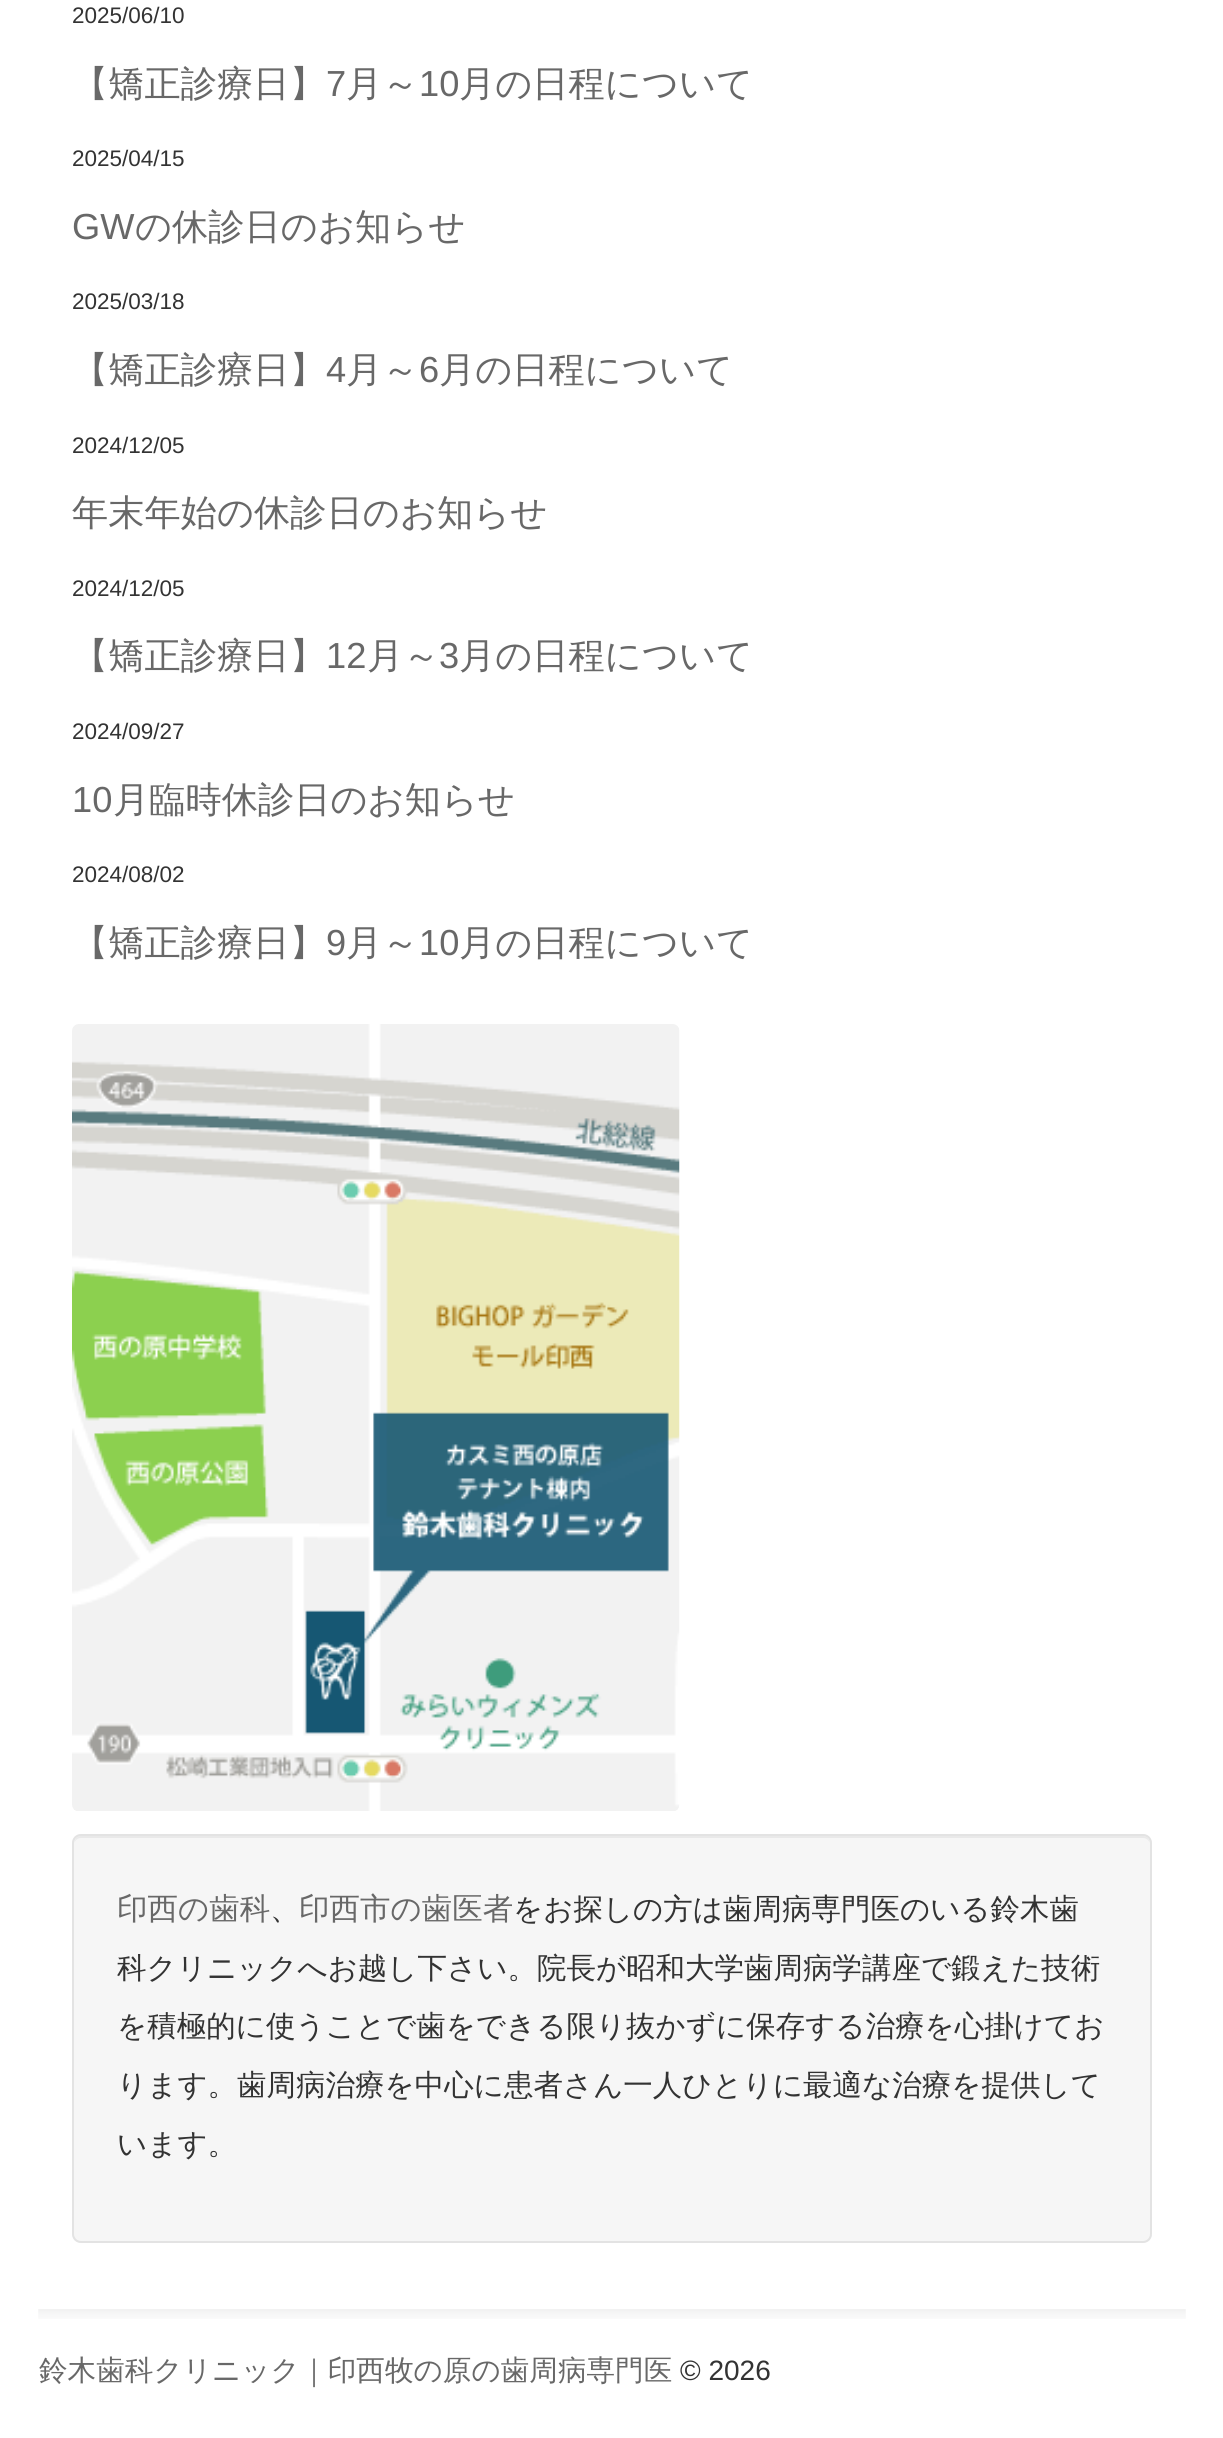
import math
import cairo

surface = cairo.ImageSurface(cairo.FORMAT_RGB24, 1223, 2438)
ctx = cairo.Context(surface)
options = cairo.FontOptions()
options.set_hint_metrics(cairo.HINT_METRICS_OFF)
options.set_hint_style(cairo.HINT_STYLE_NONE)
ctx.set_font_options(options)
ctx.set_miter_limit(4)


def round_rect(x, y, w, h, r):
    ctx.new_sub_path()
    for i, (u, v) in enumerate([(x + w - r, y + h - r), (x + r, y + h - r), (x + r, y + r), (x + w - r, y + r)]):
        ctx.arc(u, v, r, i * math.pi / 2, (i + 1) * math.pi / 2)
    ctx.close_path()


def picture(path, x, y, w, h):
    ctx.save()
    ctx.set_source_surface(cairo.ImageSurface.create_from_png(path), x, y)
    ctx.rectangle(x, y, w, h)
    ctx.fill()
    ctx.restore()


ctx.set_source_rgb(1, 1, 1)
ctx.paint()
picture("img1.png", 38, 2309, 1148, 10)
ctx.select_font_face("Liberation Sans")
ctx.set_font_size(22.5)
ctx.set_source_rgb(0.2, 0.2, 0.2)
ctx.move_to(72, 23)
ctx.show_text("2025/06/10")
ctx.select_font_face("WenQuanYi Zen Hei Medium")
ctx.set_font_size(36.25)
ctx.set_source_rgb(0.408, 0.408, 0.408)
ctx.move_to(72, 96)
ctx.show_text("【矯正診療日】")
ctx.select_font_face("Liberation Sans")
ctx.move_to(326, 96)
ctx.show_text("7")
ctx.select_font_face("WenQuanYi Zen Hei Medium")
ctx.move_to(346, 96)
ctx.show_text("月～")
ctx.select_font_face("Liberation Sans")
ctx.move_to(419, 96)
ctx.show_text("10")
ctx.select_font_face("WenQuanYi Zen Hei Medium")
ctx.move_to(459, 96)
ctx.show_text("月の日程について")
ctx.select_font_face("Liberation Sans")
ctx.set_font_size(22.5)
ctx.set_source_rgb(0.2, 0.2, 0.2)
ctx.move_to(72, 166)
ctx.show_text("2025/04/15")
ctx.set_font_size(36.25)
ctx.set_source_rgb(0.408, 0.408, 0.408)
ctx.move_to(72, 239)
ctx.show_text("GW")
ctx.select_font_face("WenQuanYi Zen Hei Medium")
ctx.move_to(135, 239)
ctx.show_text("の休診日のお知らせ")
ctx.select_font_face("Liberation Sans")
ctx.set_font_size(22.5)
ctx.set_source_rgb(0.2, 0.2, 0.2)
ctx.move_to(72, 309)
ctx.show_text("2025/03/18")
ctx.select_font_face("WenQuanYi Zen Hei Medium")
ctx.set_font_size(36.25)
ctx.set_source_rgb(0.408, 0.408, 0.408)
ctx.move_to(72, 382)
ctx.show_text("【矯正診療日】")
ctx.select_font_face("Liberation Sans")
ctx.move_to(326, 382)
ctx.show_text("4")
ctx.select_font_face("WenQuanYi Zen Hei Medium")
ctx.move_to(346, 382)
ctx.show_text("月～")
ctx.select_font_face("Liberation Sans")
ctx.move_to(419, 382)
ctx.show_text("6")
ctx.select_font_face("WenQuanYi Zen Hei Medium")
ctx.move_to(439, 382)
ctx.show_text("月の日程について")
ctx.select_font_face("Liberation Sans")
ctx.set_font_size(22.5)
ctx.set_source_rgb(0.2, 0.2, 0.2)
ctx.move_to(72, 453)
ctx.show_text("2024/12/05")
ctx.select_font_face("WenQuanYi Zen Hei Medium")
ctx.set_font_size(36.25)
ctx.set_source_rgb(0.408, 0.408, 0.408)
ctx.move_to(72, 525)
ctx.show_text("年末年始の休診日のお知らせ")
ctx.select_font_face("Liberation Sans")
ctx.set_font_size(22.5)
ctx.set_source_rgb(0.2, 0.2, 0.2)
ctx.move_to(72, 596)
ctx.show_text("2024/12/05")
ctx.select_font_face("WenQuanYi Zen Hei Medium")
ctx.set_font_size(36.25)
ctx.set_source_rgb(0.408, 0.408, 0.408)
ctx.move_to(72, 668)
ctx.show_text("【矯正診療日】")
ctx.select_font_face("Liberation Sans")
ctx.move_to(326, 668)
ctx.show_text("12")
ctx.select_font_face("WenQuanYi Zen Hei Medium")
ctx.move_to(367, 668)
ctx.show_text("月～")
ctx.select_font_face("Liberation Sans")
ctx.move_to(439, 668)
ctx.show_text("3")
ctx.select_font_face("WenQuanYi Zen Hei Medium")
ctx.move_to(459, 668)
ctx.show_text("月の日程について")
ctx.select_font_face("Liberation Sans")
ctx.set_font_size(22.5)
ctx.set_source_rgb(0.2, 0.2, 0.2)
ctx.move_to(72, 739)
ctx.show_text("2024/09/27")
ctx.set_font_size(36.25)
ctx.set_source_rgb(0.408, 0.408, 0.408)
ctx.move_to(72, 812)
ctx.show_text("10")
ctx.select_font_face("WenQuanYi Zen Hei Medium")
ctx.move_to(113, 812)
ctx.show_text("月臨時休診日のお知らせ")
ctx.select_font_face("Liberation Sans")
ctx.set_font_size(22.5)
ctx.set_source_rgb(0.2, 0.2, 0.2)
ctx.move_to(72, 882)
ctx.show_text("2024/08/02")
ctx.select_font_face("WenQuanYi Zen Hei Medium")
ctx.set_font_size(36.25)
ctx.set_source_rgb(0.408, 0.408, 0.408)
ctx.move_to(72, 955)
ctx.show_text("【矯正診療日】")
ctx.select_font_face("Liberation Sans")
ctx.move_to(326, 955)
ctx.show_text("9")
ctx.select_font_face("WenQuanYi Zen Hei Medium")
ctx.move_to(346, 955)
ctx.show_text("月～")
ctx.select_font_face("Liberation Sans")
ctx.move_to(419, 955)
ctx.show_text("10")
ctx.select_font_face("WenQuanYi Zen Hei Medium")
ctx.move_to(459, 955)
ctx.show_text("月の日程について")
picture("img2.png", 72, 1024, 608, 787)
ctx.set_source_rgb(0.961, 0.961, 0.961)
round_rect(72, 1834, 1080, 409, 9)
ctx.fill()
ctx.set_source_rgb(0.914, 0.914, 0.914)
ctx.new_path()
ctx.move_to(81, 1838)
ctx.line_to(1143, 1838)
ctx.curve_to(1147, 1838, 1150, 1841, 1150, 1845)
ctx.curve_to(1150, 1841, 1148, 1836, 1143, 1836)
ctx.line_to(81, 1836)
ctx.curve_to(76, 1836, 74, 1841, 74, 1845)
ctx.curve_to(74, 1841, 77, 1838, 81, 1838)
ctx.close_path()
ctx.fill()
round_rect(73, 1835, 1078, 407, 8)
ctx.set_source_rgb(0.89, 0.89, 0.89)
ctx.stroke()
ctx.set_font_size(30.5)
ctx.set_source_rgb(0.408, 0.408, 0.408)
ctx.move_to(117, 1919)
ctx.show_text("印西の歯科")
ctx.set_font_size(29.5)
ctx.set_source_rgb(0.2, 0.2, 0.2)
ctx.move_to(270, 1919)
ctx.show_text("、")
ctx.set_font_size(30.5)
ctx.set_source_rgb(0.408, 0.408, 0.408)
ctx.move_to(299, 1919)
ctx.show_text("印西市の歯医者")
ctx.set_font_size(29.5)
ctx.set_source_rgb(0.2, 0.2, 0.2)
ctx.move_to(513, 1919)
ctx.show_text("をお探しの方は歯周病専門医のいる鈴木歯")
ctx.move_to(117, 1978)
ctx.show_text("科クリニックへお越し下さい。院長が昭和大学歯周病学講座で鍛えた技術")
ctx.move_to(117, 2036)
ctx.show_text("を積極的に使うことで歯をできる限り抜かずに保存する治療を心掛けてお")
ctx.move_to(117, 2095)
ctx.show_text("ります。歯周病治療を中心に患者さん一人ひとりに最適な治療を提供して")
ctx.move_to(117, 2154)
ctx.show_text("います。")
ctx.set_font_size(28.6)
ctx.set_source_rgb(0.408, 0.408, 0.408)
ctx.move_to(39, 2380)
ctx.show_text("鈴木歯科クリニック｜印西牧の原の歯周病専門医")
ctx.select_font_face("Liberation Sans")
ctx.set_font_size(28)
ctx.set_source_rgb(0.2, 0.2, 0.2)
ctx.move_to(680, 2380)
ctx.show_text("© 2026")
surface.write_to_png("page.png")
